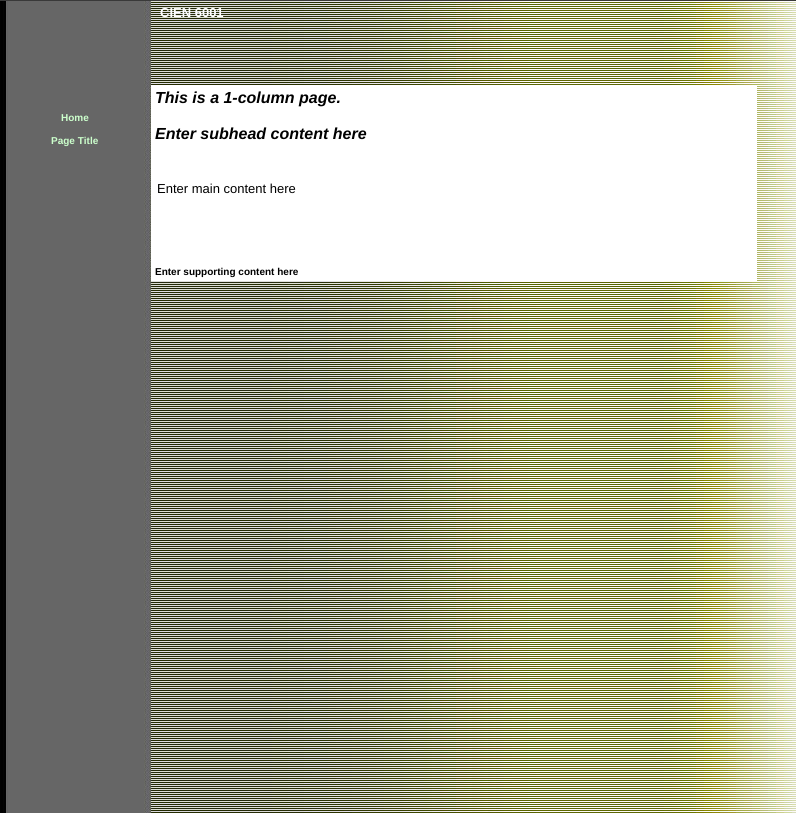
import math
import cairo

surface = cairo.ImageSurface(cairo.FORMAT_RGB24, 796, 813)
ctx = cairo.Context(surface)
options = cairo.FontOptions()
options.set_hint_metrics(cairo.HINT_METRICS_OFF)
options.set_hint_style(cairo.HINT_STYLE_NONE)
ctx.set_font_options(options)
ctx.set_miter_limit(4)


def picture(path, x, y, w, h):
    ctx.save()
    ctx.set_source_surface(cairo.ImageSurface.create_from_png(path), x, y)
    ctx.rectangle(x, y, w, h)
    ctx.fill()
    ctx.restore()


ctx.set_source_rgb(1, 1, 1)
ctx.paint()
picture("img1.png", 0, 1, 796, 812)
ctx.set_source_rgb(0.224, 0.224, 0.224)
ctx.rectangle(0, 0, 796, 1)
ctx.fill()
ctx.select_font_face("Liberation Sans", cairo.FONT_SLANT_NORMAL, cairo.FONT_WEIGHT_BOLD)
ctx.set_font_size(13)
ctx.set_source_rgb(1, 1, 1)
ctx.move_to(160, 17)
ctx.show_text("CIEN 6001")
ctx.set_font_size(10)
ctx.set_source_rgb(0.8, 1, 0.8)
ctx.move_to(61, 121)
ctx.show_text("Home")
ctx.move_to(51, 144)
ctx.show_text("Page Title")
ctx.set_source_rgb(1, 1, 1)
ctx.rectangle(151, 85, 606, 196)
ctx.fill()
ctx.select_font_face("Liberation Sans", cairo.FONT_SLANT_ITALIC, cairo.FONT_WEIGHT_BOLD)
ctx.set_font_size(16)
ctx.set_source_rgb(0, 0, 0)
ctx.move_to(155, 103)
ctx.show_text("This is a 1-column page.")
ctx.move_to(155, 139)
ctx.show_text("Enter subhead content here")
ctx.select_font_face("Liberation Sans")
ctx.set_font_size(13)
ctx.move_to(157, 193)
ctx.show_text("Enter main content here")
ctx.select_font_face("Liberation Sans", cairo.FONT_SLANT_NORMAL, cairo.FONT_WEIGHT_BOLD)
ctx.set_font_size(10)
ctx.move_to(155, 275)
ctx.show_text("Enter supporting content here")
surface.write_to_png("page.png")
